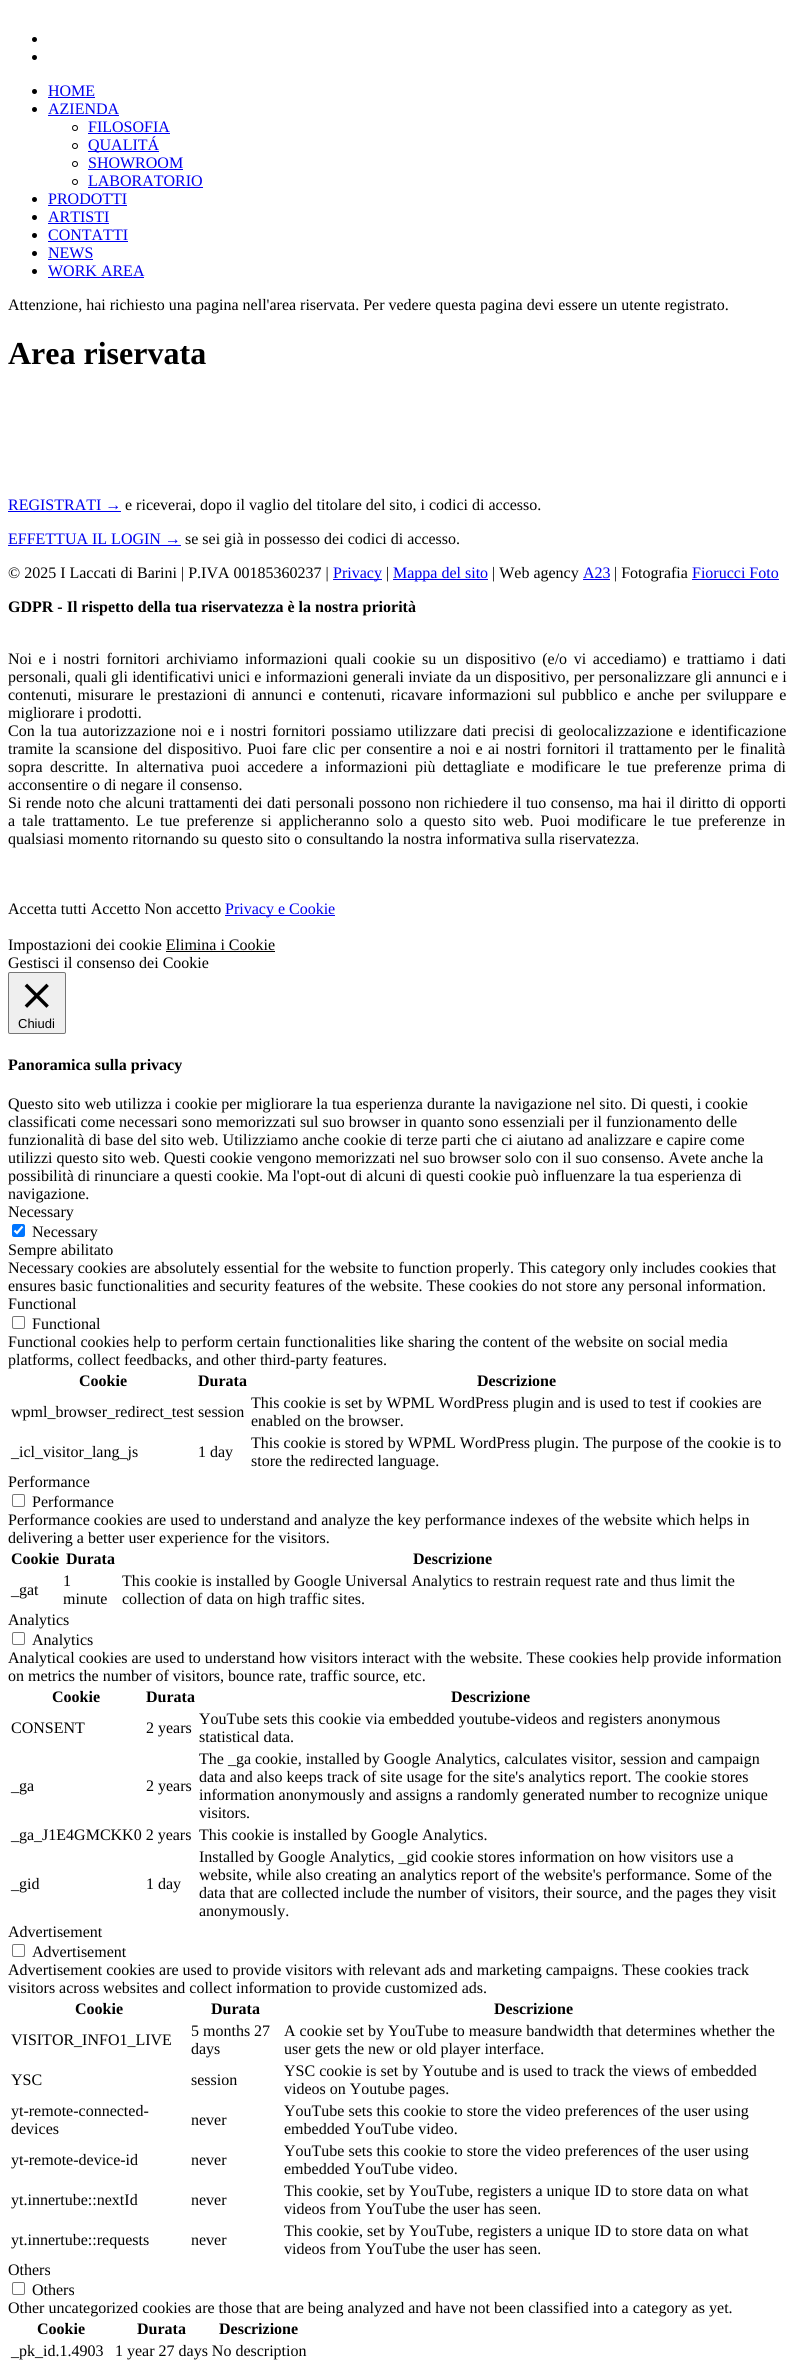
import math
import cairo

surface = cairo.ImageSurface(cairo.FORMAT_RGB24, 794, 2372)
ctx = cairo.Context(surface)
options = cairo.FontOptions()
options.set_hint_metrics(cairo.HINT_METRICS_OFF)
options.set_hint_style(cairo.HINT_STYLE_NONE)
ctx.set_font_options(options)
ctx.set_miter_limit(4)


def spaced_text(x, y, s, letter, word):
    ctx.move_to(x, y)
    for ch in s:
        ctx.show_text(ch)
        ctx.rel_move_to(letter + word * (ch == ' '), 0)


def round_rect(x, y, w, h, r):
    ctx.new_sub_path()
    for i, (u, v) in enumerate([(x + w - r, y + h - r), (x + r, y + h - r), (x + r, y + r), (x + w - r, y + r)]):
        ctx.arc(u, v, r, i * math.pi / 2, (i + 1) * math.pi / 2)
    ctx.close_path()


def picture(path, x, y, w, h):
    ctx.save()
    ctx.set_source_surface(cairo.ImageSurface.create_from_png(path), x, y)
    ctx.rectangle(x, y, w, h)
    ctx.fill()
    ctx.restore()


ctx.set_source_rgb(1, 1, 1)
ctx.paint()
ctx.set_source_rgb(0, 0, 0)
ctx.arc(34.5, 39.5, 2.5, 0, 2 * math.pi)
ctx.fill()
ctx.arc(34.5, 57.5, 2.5, 0, 2 * math.pi)
ctx.fill()
ctx.arc(34.5, 91.5, 2.5, 0, 2 * math.pi)
ctx.fill()
ctx.select_font_face("Liberation Serif")
ctx.set_font_size(16)
ctx.set_source_rgb(0, 0, 0.933)
ctx.move_to(48, 96)
ctx.show_text("HOME")
ctx.rectangle(48, 97, 47, 1)
ctx.fill()
ctx.set_source_rgb(0, 0, 0)
ctx.arc(34.5, 109.5, 2.5, 0, 2 * math.pi)
ctx.fill()
ctx.set_source_rgb(0, 0, 0.933)
ctx.move_to(48, 114)
ctx.show_text("AZIENDA")
ctx.rectangle(48, 115, 71, 1)
ctx.fill()
ctx.arc(75, 128, 2.5, 0, 2 * math.pi)
ctx.set_source_rgb(0, 0, 0)
ctx.set_line_width(1)
ctx.stroke()
ctx.set_source_rgb(0, 0, 0.933)
ctx.move_to(88, 132)
ctx.show_text("FILOSOFIA")
ctx.rectangle(88, 133, 82, 1)
ctx.fill()
ctx.arc(75, 146, 2.5, 0, 2 * math.pi)
ctx.set_source_rgb(0, 0, 0)
ctx.stroke()
ctx.set_source_rgb(0, 0, 0.933)
ctx.rectangle(88, 151, 71, 1)
ctx.fill()
ctx.move_to(88, 150)
ctx.show_text("QUALITÁ")
ctx.new_path()
ctx.arc(75, 164, 2.5, 0, 2 * math.pi)
ctx.set_source_rgb(0, 0, 0)
ctx.stroke()
ctx.set_source_rgb(0, 0, 0.933)
ctx.move_to(88, 168)
ctx.show_text("SHOWROOM")
ctx.rectangle(88, 169, 95, 1)
ctx.fill()
ctx.arc(75, 182, 2.5, 0, 2 * math.pi)
ctx.set_source_rgb(0, 0, 0)
ctx.stroke()
ctx.set_source_rgb(0, 0, 0.933)
ctx.move_to(88, 186)
ctx.show_text("LABORATORIO")
ctx.rectangle(88, 187, 115, 1)
ctx.fill()
ctx.set_source_rgb(0, 0, 0)
ctx.arc(34.5, 199.5, 2.5, 0, 2 * math.pi)
ctx.fill()
ctx.set_source_rgb(0, 0, 0.933)
ctx.move_to(48, 204)
ctx.show_text("PRODOTTI")
ctx.rectangle(48, 205, 79, 1)
ctx.fill()
ctx.set_source_rgb(0, 0, 0)
ctx.arc(34.5, 217.5, 2.5, 0, 2 * math.pi)
ctx.fill()
ctx.set_source_rgb(0, 0, 0.933)
ctx.move_to(48, 222)
ctx.show_text("ARTISTI")
ctx.rectangle(48, 223, 61, 1)
ctx.fill()
ctx.set_source_rgb(0, 0, 0)
ctx.arc(34.5, 235.5, 2.5, 0, 2 * math.pi)
ctx.fill()
ctx.set_source_rgb(0, 0, 0.933)
ctx.move_to(48, 240)
ctx.show_text("CONTATTI")
ctx.rectangle(48, 241, 80, 1)
ctx.fill()
ctx.set_source_rgb(0, 0, 0)
ctx.arc(34.5, 253.5, 2.5, 0, 2 * math.pi)
ctx.fill()
ctx.set_source_rgb(0, 0, 0.933)
ctx.move_to(48, 258)
ctx.show_text("NEWS")
ctx.rectangle(48, 259, 45, 1)
ctx.fill()
ctx.set_source_rgb(0, 0, 0)
ctx.arc(34.5, 271.5, 2.5, 0, 2 * math.pi)
ctx.fill()
ctx.set_source_rgb(0, 0, 0.933)
ctx.move_to(48, 276)
ctx.show_text("WORK AREA")
ctx.rectangle(48, 277, 96, 1)
ctx.fill()
ctx.set_source_rgb(0, 0, 0)
ctx.move_to(8, 310)
ctx.show_text("Attenzione, hai richiesto una pagina nell'area riservata. Per vedere questa pagina devi essere un utente registrato.")
ctx.select_font_face("Liberation Serif", cairo.FONT_SLANT_NORMAL, cairo.FONT_WEIGHT_BOLD)
ctx.set_font_size(32)
ctx.move_to(8, 364)
ctx.show_text("Area riservata")
ctx.select_font_face("Liberation Serif")
ctx.set_font_size(16)
ctx.set_source_rgb(0, 0, 0.933)
ctx.move_to(8, 510)
ctx.show_text("REGISTRATI →")
ctx.rectangle(8, 511, 113, 1)
ctx.fill()
ctx.set_source_rgb(0, 0, 0)
ctx.move_to(125, 510)
ctx.show_text("e riceverai, dopo il vaglio del titolare del sito, i codici di accesso.")
ctx.set_source_rgb(0, 0, 0.933)
ctx.move_to(8, 544)
ctx.show_text("EFFETTUA IL LOGIN →")
ctx.rectangle(8, 545, 173, 1)
ctx.fill()
ctx.set_source_rgb(0, 0, 0)
ctx.move_to(185, 544)
ctx.show_text("se sei già in possesso dei codici di accesso.")
ctx.move_to(8, 578)
ctx.show_text("© 2025 I Laccati di Barini | P.IVA 00185360237 |")
ctx.set_source_rgb(0, 0, 0.933)
ctx.rectangle(333, 579, 49, 1)
ctx.fill()
ctx.move_to(333, 578)
ctx.show_text("Privacy")
ctx.set_source_rgb(0, 0, 0)
ctx.move_to(386, 578)
ctx.show_text("|")
ctx.set_source_rgb(0, 0, 0.933)
ctx.rectangle(393, 579, 95, 1)
ctx.fill()
ctx.move_to(393, 578)
ctx.show_text("Mappa del sito")
ctx.set_source_rgb(0, 0, 0)
ctx.move_to(492, 578)
ctx.show_text("| Web agency")
ctx.set_source_rgb(0, 0, 0.933)
ctx.move_to(583, 578)
ctx.show_text("A23")
ctx.rectangle(583, 579, 27, 1)
ctx.fill()
ctx.set_source_rgb(0, 0, 0)
ctx.move_to(614, 578)
ctx.show_text("| Fotografia")
ctx.set_source_rgb(0, 0, 0.933)
ctx.move_to(692, 578)
ctx.show_text("Fiorucci Foto")
ctx.rectangle(692, 579, 87, 1)
ctx.fill()
ctx.select_font_face("Liberation Serif", cairo.FONT_SLANT_NORMAL, cairo.FONT_WEIGHT_BOLD)
ctx.set_source_rgb(0, 0, 0)
ctx.move_to(8, 612)
ctx.show_text("GDPR - Il rispetto della tua riservatezza è la nostra priorità")
ctx.select_font_face("Liberation Serif")
spaced_text(8, 664, "Noi e i nostri fornitori archiviamo informazioni quali cookie su un dispositivo (e/o vi accediamo) e trattiamo i dati", 0, 2.6)
spaced_text(8, 682, "personali, quali gli identificativi unici e informazioni generali inviate da un dispositivo, per personalizzare gli annunci e i", 0, 0.2)
spaced_text(8, 700, "contenuti, misurare le prestazioni di annunci e contenuti, ricavare informazioni sul pubblico e anche per sviluppare e", 0, 2)
ctx.move_to(8, 718)
ctx.show_text("migliorare i prodotti.")
spaced_text(8, 736, "Con la tua autorizzazione noi e i nostri fornitori possiamo utilizzare dati precisi di geolocalizzazione e identificazione", 0, 1.6)
spaced_text(8, 754, "tramite la scansione del dispositivo. Puoi fare clic per consentire a noi e ai nostri fornitori il trattamento per le finalità", 0, 1.3)
spaced_text(8, 772, "sopra descritte. In alternativa puoi accedere a informazioni più dettagliate e modificare le tue preferenze prima di", 0, 3.4)
ctx.move_to(8, 790)
ctx.show_text("acconsentire o di negare il consenso.")
spaced_text(8, 808, "Si rende noto che alcuni trattamenti dei dati personali possono non richiedere il tuo consenso, ma hai il diritto di opporti", 0, 0.5)
spaced_text(8, 826, "a tale trattamento. Le tue preferenze si applicheranno solo a questo sito web. Puoi modificare le tue preferenze in", 0, 3)
ctx.move_to(8, 844)
ctx.show_text("qualsiasi momento ritornando su questo sito o consultando la nostra informativa sulla riservatezza.")
ctx.move_to(8, 914)
ctx.show_text("Accetta tutti Accetto Non accetto")
ctx.set_source_rgb(0, 0, 0.933)
ctx.rectangle(225, 915, 110, 1)
ctx.fill()
ctx.move_to(225, 914)
ctx.show_text("Privacy e Cookie")
ctx.set_source_rgb(0, 0, 0)
ctx.move_to(8, 950)
ctx.show_text("Impostazioni dei cookie Elimina i Cookie")
ctx.rectangle(166, 951, 109, 1)
ctx.fill()
ctx.move_to(8, 968)
ctx.show_text("Gestisci il consenso dei Cookie")
ctx.set_source_rgb(0.937, 0.937, 0.937)
round_rect(8.5, 972.5, 57, 61, 1.5)
ctx.fill_preserve()
ctx.set_source_rgb(0.463, 0.463, 0.463)
ctx.stroke()
picture("img1.png", 24, 983, 25, 25)
ctx.select_font_face("Liberation Sans")
ctx.set_font_size(13)
ctx.set_source_rgb(0, 0, 0)
ctx.move_to(18, 1028)
ctx.show_text("Chiudi")
ctx.select_font_face("Liberation Serif", cairo.FONT_SLANT_NORMAL, cairo.FONT_WEIGHT_BOLD)
ctx.set_font_size(16)
ctx.move_to(8, 1070)
ctx.show_text("Panoramica sulla privacy")
ctx.select_font_face("Liberation Serif")
ctx.move_to(8, 1109)
ctx.show_text("Questo sito web utilizza i cookie per migliorare la tua esperienza durante la navigazione nel sito. Di questi, i cookie")
ctx.move_to(8, 1127)
ctx.show_text("classificati come necessari sono memorizzati sul suo browser in quanto sono essenziali per il funzionamento delle")
ctx.move_to(8, 1145)
ctx.show_text("funzionalità di base del sito web. Utilizziamo anche cookie di terze parti che ci aiutano ad analizzare e capire come")
ctx.move_to(8, 1163)
ctx.show_text("utilizzi questo sito web. Questi cookie vengono memorizzati nel suo browser solo con il suo consenso. Avete anche la")
ctx.move_to(8, 1181)
ctx.show_text("possibilità di rinunciare a questi cookie. Ma l'opt-out di alcuni di questi cookie può influenzare la tua esperienza di")
ctx.move_to(8, 1199)
ctx.show_text("navigazione.")
ctx.move_to(8, 1217)
ctx.show_text("Necessary")
ctx.set_source_rgb(0, 0.459, 1)
round_rect(12, 1224, 13, 13, 2)
ctx.fill()
ctx.new_path()
ctx.move_to(14.5, 1230.5)
ctx.line_to(17, 1233)
ctx.line_to(22.5, 1226.5)
ctx.set_source_rgb(1, 1, 1)
ctx.set_line_width(2.1)
ctx.stroke()
ctx.set_source_rgb(0, 0, 0)
ctx.move_to(32, 1237)
ctx.show_text("Necessary")
ctx.move_to(8, 1255)
ctx.show_text("Sempre abilitato")
ctx.move_to(8, 1273)
ctx.show_text("Necessary cookies are absolutely essential for the website to function properly. This category only includes cookies that")
ctx.move_to(8, 1291)
ctx.show_text("ensures basic functionalities and security features of the website. These cookies do not store any personal information.")
ctx.move_to(8, 1309)
ctx.show_text("Functional")
round_rect(12.5, 1316.5, 12, 12, 1.5)
ctx.set_source_rgb(0.463, 0.463, 0.463)
ctx.set_line_width(1)
ctx.stroke()
ctx.set_source_rgb(0, 0, 0)
ctx.move_to(32, 1329)
ctx.show_text("Functional")
ctx.move_to(8, 1347)
ctx.show_text("Functional cookies help to perform certain functionalities like sharing the content of the website on social media")
ctx.move_to(8, 1365)
ctx.show_text("platforms, collect feedbacks, and other third-party features.")
ctx.select_font_face("Liberation Serif", cairo.FONT_SLANT_NORMAL, cairo.FONT_WEIGHT_BOLD)
ctx.move_to(79, 1386)
ctx.show_text("Cookie")
ctx.move_to(198, 1386)
ctx.show_text("Durata")
ctx.move_to(477, 1386)
ctx.show_text("Descrizione")
ctx.select_font_face("Liberation Serif")
ctx.move_to(11, 1417)
ctx.show_text("wpml_browser_redirect_test session")
ctx.move_to(251, 1408)
ctx.show_text("This cookie is set by WPML WordPress plugin and is used to test if cookies are")
ctx.move_to(251, 1426)
ctx.show_text("enabled on the browser.")
ctx.move_to(11, 1457)
ctx.show_text("_icl_visitor_lang_js")
ctx.move_to(198, 1457)
ctx.show_text("1 day")
ctx.move_to(251, 1448)
ctx.show_text("This cookie is stored by WPML WordPress plugin. The purpose of the cookie is to")
ctx.move_to(251, 1466)
ctx.show_text("store the redirected language.")
ctx.move_to(8, 1487)
ctx.show_text("Performance")
round_rect(12.5, 1494.5, 12, 12, 1.5)
ctx.set_source_rgb(0.463, 0.463, 0.463)
ctx.stroke()
ctx.set_source_rgb(0, 0, 0)
ctx.move_to(32, 1507)
ctx.show_text("Performance")
ctx.move_to(8, 1525)
ctx.show_text("Performance cookies are used to understand and analyze the key performance indexes of the website which helps in")
ctx.move_to(8, 1543)
ctx.show_text("delivering a better user experience for the visitors.")
ctx.select_font_face("Liberation Serif", cairo.FONT_SLANT_NORMAL, cairo.FONT_WEIGHT_BOLD)
ctx.move_to(11, 1564)
ctx.show_text("Cookie")
ctx.move_to(66, 1564)
ctx.show_text("Durata")
ctx.move_to(413, 1564)
ctx.show_text("Descrizione")
ctx.select_font_face("Liberation Serif")
ctx.move_to(11, 1595)
ctx.show_text("_gat")
ctx.move_to(63, 1586)
ctx.show_text("1")
ctx.move_to(63, 1604)
ctx.show_text("minute")
ctx.move_to(122, 1586)
ctx.show_text("This cookie is installed by Google Universal Analytics to restrain request rate and thus limit the")
ctx.move_to(122, 1604)
ctx.show_text("collection of data on high traffic sites.")
ctx.move_to(8, 1625)
ctx.show_text("Analytics")
round_rect(12.5, 1632.5, 12, 12, 1.5)
ctx.set_source_rgb(0.463, 0.463, 0.463)
ctx.stroke()
ctx.set_source_rgb(0, 0, 0)
ctx.move_to(32, 1645)
ctx.show_text("Analytics")
ctx.move_to(8, 1663)
ctx.show_text("Analytical cookies are used to understand how visitors interact with the website. These cookies help provide information")
ctx.move_to(8, 1681)
ctx.show_text("on metrics the number of visitors, bounce rate, traffic source, etc.")
ctx.select_font_face("Liberation Serif", cairo.FONT_SLANT_NORMAL, cairo.FONT_WEIGHT_BOLD)
ctx.move_to(52, 1702)
ctx.show_text("Cookie")
ctx.move_to(146, 1702)
ctx.show_text("Durata")
ctx.move_to(451, 1702)
ctx.show_text("Descrizione")
ctx.select_font_face("Liberation Serif")
ctx.move_to(11, 1733)
ctx.show_text("CONSENT")
ctx.move_to(146, 1733)
ctx.show_text("2 years")
ctx.move_to(199, 1724)
ctx.show_text("YouTube sets this cookie via embedded youtube-videos and registers anonymous")
ctx.move_to(199, 1742)
ctx.show_text("statistical data.")
ctx.move_to(11, 1791)
ctx.show_text("_ga")
ctx.move_to(146, 1791)
ctx.show_text("2 years")
ctx.move_to(199, 1764)
ctx.show_text("The _ga cookie, installed by Google Analytics, calculates visitor, session and campaign")
ctx.move_to(199, 1782)
ctx.show_text("data and also keeps track of site usage for the site's analytics report. The cookie stores")
ctx.move_to(199, 1800)
ctx.show_text("information anonymously and assigns a randomly generated number to recognize unique")
ctx.move_to(199, 1818)
ctx.show_text("visitors.")
ctx.move_to(11, 1840)
ctx.show_text("_ga_J1E4GMCKK0 2 years")
ctx.move_to(199, 1840)
ctx.show_text("This cookie is installed by Google Analytics.")
ctx.move_to(11, 1889)
ctx.show_text("_gid")
ctx.move_to(146, 1889)
ctx.show_text("1 day")
ctx.move_to(199, 1862)
ctx.show_text("Installed by Google Analytics, _gid cookie stores information on how visitors use a")
ctx.move_to(199, 1880)
ctx.show_text("website, while also creating an analytics report of the website's performance. Some of the")
ctx.move_to(199, 1898)
ctx.show_text("data that are collected include the number of visitors, their source, and the pages they visit")
ctx.move_to(199, 1916)
ctx.show_text("anonymously.")
ctx.move_to(8, 1937)
ctx.show_text("Advertisement")
round_rect(12.5, 1944.5, 12, 12, 1.5)
ctx.set_source_rgb(0.463, 0.463, 0.463)
ctx.stroke()
ctx.set_source_rgb(0, 0, 0)
ctx.move_to(32, 1957)
ctx.show_text("Advertisement")
ctx.move_to(8, 1975)
ctx.show_text("Advertisement cookies are used to provide visitors with relevant ads and marketing campaigns. These cookies track")
ctx.move_to(8, 1993)
ctx.show_text("visitors across websites and collect information to provide customized ads.")
ctx.select_font_face("Liberation Serif", cairo.FONT_SLANT_NORMAL, cairo.FONT_WEIGHT_BOLD)
ctx.move_to(75, 2014)
ctx.show_text("Cookie")
ctx.move_to(211, 2014)
ctx.show_text("Durata")
ctx.move_to(494, 2014)
ctx.show_text("Descrizione")
ctx.select_font_face("Liberation Serif")
ctx.move_to(11, 2045)
ctx.show_text("VISITOR_INFO1_LIVE")
ctx.move_to(191, 2036)
ctx.show_text("5 months 27")
ctx.move_to(191, 2054)
ctx.show_text("days")
ctx.move_to(284, 2036)
ctx.show_text("A cookie set by YouTube to measure bandwidth that determines whether the")
ctx.move_to(284, 2054)
ctx.show_text("user gets the new or old player interface.")
ctx.move_to(11, 2085)
ctx.show_text("YSC")
ctx.move_to(191, 2085)
ctx.show_text("session")
ctx.move_to(284, 2076)
ctx.show_text("YSC cookie is set by Youtube and is used to track the views of embedded")
ctx.move_to(284, 2094)
ctx.show_text("videos on Youtube pages.")
ctx.move_to(11, 2116)
ctx.show_text("yt-remote-connected-")
ctx.move_to(11, 2134)
ctx.show_text("devices")
ctx.move_to(191, 2125)
ctx.show_text("never")
ctx.move_to(284, 2116)
ctx.show_text("YouTube sets this cookie to store the video preferences of the user using")
ctx.move_to(284, 2134)
ctx.show_text("embedded YouTube video.")
ctx.move_to(11, 2165)
ctx.show_text("yt-remote-device-id")
ctx.move_to(191, 2165)
ctx.show_text("never")
ctx.move_to(284, 2156)
ctx.show_text("YouTube sets this cookie to store the video preferences of the user using")
ctx.move_to(284, 2174)
ctx.show_text("embedded YouTube video.")
ctx.move_to(11, 2205)
ctx.show_text("yt.innertube::nextId")
ctx.move_to(191, 2205)
ctx.show_text("never")
ctx.move_to(284, 2196)
ctx.show_text("This cookie, set by YouTube, registers a unique ID to store data on what")
ctx.move_to(284, 2214)
ctx.show_text("videos from YouTube the user has seen.")
ctx.move_to(11, 2245)
ctx.show_text("yt.innertube::requests")
ctx.move_to(191, 2245)
ctx.show_text("never")
ctx.move_to(284, 2236)
ctx.show_text("This cookie, set by YouTube, registers a unique ID to store data on what")
ctx.move_to(284, 2254)
ctx.show_text("videos from YouTube the user has seen.")
ctx.move_to(8, 2275)
ctx.show_text("Others")
round_rect(12.5, 2282.5, 12, 12, 1.5)
ctx.set_source_rgb(0.463, 0.463, 0.463)
ctx.stroke()
ctx.set_source_rgb(0, 0, 0)
ctx.move_to(32, 2295)
ctx.show_text("Others")
ctx.move_to(8, 2313)
ctx.show_text("Other uncategorized cookies are those that are being analyzed and have not been classified into a category as yet.")
ctx.select_font_face("Liberation Serif", cairo.FONT_SLANT_NORMAL, cairo.FONT_WEIGHT_BOLD)
ctx.move_to(37, 2334)
ctx.show_text("Cookie")
ctx.move_to(137, 2334)
ctx.show_text("Durata")
ctx.move_to(219, 2334)
ctx.show_text("Descrizione")
ctx.select_font_face("Liberation Serif")
ctx.move_to(11, 2356)
ctx.show_text("_pk_id.1.4903")
ctx.move_to(115, 2356)
ctx.show_text("1 year 27 days No description")
surface.write_to_png("page.png")
